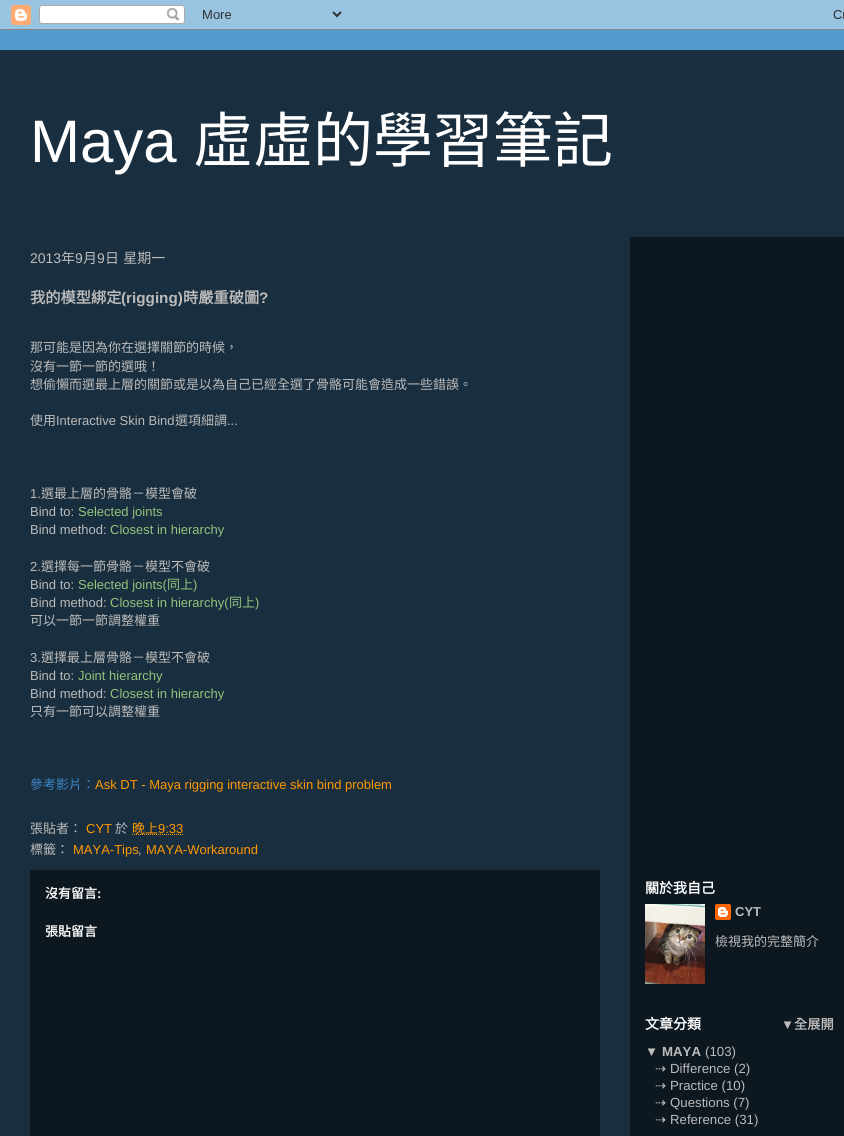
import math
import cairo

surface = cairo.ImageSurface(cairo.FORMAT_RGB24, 844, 1136)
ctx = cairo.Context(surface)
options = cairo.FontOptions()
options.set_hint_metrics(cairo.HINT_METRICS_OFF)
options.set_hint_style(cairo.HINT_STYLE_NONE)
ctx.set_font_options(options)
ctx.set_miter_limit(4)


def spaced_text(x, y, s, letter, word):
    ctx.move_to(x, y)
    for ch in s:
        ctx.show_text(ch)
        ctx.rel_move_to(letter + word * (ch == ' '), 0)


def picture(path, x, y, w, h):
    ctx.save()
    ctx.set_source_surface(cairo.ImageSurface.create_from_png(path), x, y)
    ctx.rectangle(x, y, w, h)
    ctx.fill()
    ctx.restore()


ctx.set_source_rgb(0.325, 0.608, 0.804)
ctx.paint()
picture("img1.png", 0, 0, 844, 30)
ctx.set_source_rgb(0.098, 0.18, 0.243)
ctx.rectangle(0, 50, 844, 1086)
ctx.fill()
ctx.select_font_face("Liberation Sans")
ctx.set_font_size(60)
ctx.set_source_rgb(1, 1, 1)
ctx.move_to(30, 162)
ctx.show_text("Maya")
ctx.select_font_face("Noto Sans CJK TC")
ctx.move_to(193, 162)
ctx.show_text("虛虛的學習筆記")
ctx.set_source_rgb(0.051, 0.09, 0.122)
ctx.rectangle(630, 237, 214, 899)
ctx.fill()
ctx.select_font_face("Liberation Sans")
ctx.set_font_size(14)
ctx.set_source_rgb(0.733, 0.733, 0.733)
ctx.move_to(30, 263)
ctx.show_text("2013")
ctx.select_font_face("Noto Sans CJK TC")
ctx.move_to(61, 263)
ctx.show_text("年")
ctx.select_font_face("Liberation Sans")
ctx.move_to(75, 263)
ctx.show_text("9")
ctx.select_font_face("Noto Sans CJK TC")
ctx.move_to(83, 263)
ctx.show_text("月")
ctx.select_font_face("Liberation Sans")
ctx.move_to(97, 263)
ctx.show_text("9")
ctx.select_font_face("Noto Sans CJK TC")
spaced_text(105, 263, "日 星期一", 0, 1)
ctx.select_font_face("Noto Sans CJK TC", cairo.FONT_SLANT_NORMAL, cairo.FONT_WEIGHT_BOLD)
ctx.set_font_size(15.25)
ctx.move_to(30, 303)
ctx.show_text("我的模型綁定")
ctx.select_font_face("Liberation Sans", cairo.FONT_SLANT_NORMAL, cairo.FONT_WEIGHT_BOLD)
ctx.move_to(121, 303)
ctx.show_text("(rigging)")
ctx.select_font_face("Noto Sans CJK TC", cairo.FONT_SLANT_NORMAL, cairo.FONT_WEIGHT_BOLD)
ctx.move_to(183, 303)
ctx.show_text("時嚴重破圖")
ctx.select_font_face("Liberation Sans", cairo.FONT_SLANT_NORMAL, cairo.FONT_WEIGHT_BOLD)
ctx.move_to(259, 303)
ctx.show_text("?")
ctx.select_font_face("Noto Sans CJK TC")
ctx.set_font_size(13)
ctx.move_to(30, 352)
ctx.show_text("那可能是因為你在選擇關節的時候，")
ctx.move_to(30, 371)
ctx.show_text("沒有一節一節的選哦！")
ctx.move_to(30, 389)
ctx.show_text("想偷懶而選最上層的關節或是以為自己已經全選了骨骼可能會造成一些錯誤。")
ctx.move_to(30, 425)
ctx.show_text("使用")
ctx.select_font_face("Liberation Sans")
ctx.move_to(56, 425)
ctx.show_text("Interactive Skin Bind")
ctx.select_font_face("Noto Sans CJK TC")
ctx.move_to(175, 425)
ctx.show_text("選項細調")
ctx.select_font_face("Liberation Sans")
ctx.move_to(227, 425)
ctx.show_text("...")
ctx.move_to(30, 498)
ctx.show_text("1.")
ctx.select_font_face("Noto Sans CJK TC")
ctx.move_to(41, 498)
ctx.show_text("選最上層的骨骼－模型會破")
ctx.select_font_face("Liberation Sans")
ctx.move_to(30, 516)
ctx.show_text("Bind to:")
ctx.set_source_rgb(0.576, 0.769, 0.49)
ctx.move_to(78, 516)
ctx.show_text("Selected joints")
ctx.set_source_rgb(0.733, 0.733, 0.733)
ctx.move_to(30, 534)
ctx.show_text("Bind method:")
ctx.set_source_rgb(0.576, 0.769, 0.49)
ctx.move_to(110, 534)
ctx.show_text("Closest in hierarchy")
ctx.set_source_rgb(0.733, 0.733, 0.733)
ctx.move_to(30, 571)
ctx.show_text("2.")
ctx.select_font_face("Noto Sans CJK TC")
ctx.move_to(41, 571)
ctx.show_text("選擇每一節骨骼－模型不會破")
ctx.select_font_face("Liberation Sans")
ctx.move_to(30, 589)
ctx.show_text("Bind to:")
ctx.set_source_rgb(0.576, 0.769, 0.49)
ctx.move_to(78, 589)
ctx.show_text("Selected joints(")
ctx.select_font_face("Noto Sans CJK TC")
ctx.move_to(167, 589)
ctx.show_text("同上")
ctx.select_font_face("Liberation Sans")
ctx.move_to(193, 589)
ctx.show_text(")")
ctx.set_source_rgb(0.733, 0.733, 0.733)
ctx.move_to(30, 607)
ctx.show_text("Bind method:")
ctx.set_source_rgb(0.576, 0.769, 0.49)
ctx.move_to(110, 607)
ctx.show_text("Closest in hierarchy(")
ctx.select_font_face("Noto Sans CJK TC")
ctx.move_to(229, 607)
ctx.show_text("同上")
ctx.select_font_face("Liberation Sans")
ctx.move_to(255, 607)
ctx.show_text(")")
ctx.select_font_face("Noto Sans CJK TC")
ctx.set_source_rgb(0.733, 0.733, 0.733)
ctx.move_to(30, 625)
ctx.show_text("可以一節一節調整權重")
ctx.select_font_face("Liberation Sans")
ctx.move_to(30, 662)
ctx.show_text("3.")
ctx.select_font_face("Noto Sans CJK TC")
ctx.move_to(41, 662)
ctx.show_text("選擇最上層骨骼－模型不會破")
ctx.select_font_face("Liberation Sans")
ctx.move_to(30, 680)
ctx.show_text("Bind to:")
ctx.set_source_rgb(0.576, 0.769, 0.49)
ctx.move_to(78, 680)
ctx.show_text("Joint hierarchy")
ctx.set_source_rgb(0.733, 0.733, 0.733)
ctx.move_to(30, 698)
ctx.show_text("Bind method:")
ctx.set_source_rgb(0.576, 0.769, 0.49)
ctx.move_to(110, 698)
ctx.show_text("Closest in hierarchy")
ctx.select_font_face("Noto Sans CJK TC")
ctx.set_source_rgb(0.733, 0.733, 0.733)
ctx.move_to(30, 716)
ctx.show_text("只有一節可以調整權重")
ctx.set_source_rgb(0.239, 0.522, 0.776)
ctx.move_to(30, 789)
ctx.show_text("參考影片：")
ctx.select_font_face("Liberation Sans")
ctx.set_source_rgb(1, 0.6, 0)
ctx.move_to(95, 789)
ctx.show_text("Ask DT - Maya rigging interactive skin bind problem")
ctx.select_font_face("Noto Sans CJK TC")
ctx.set_source_rgb(0.733, 0.733, 0.733)
ctx.move_to(30, 833)
ctx.show_text("張貼者：")
ctx.select_font_face("Liberation Sans")
ctx.set_source_rgb(1, 0.6, 0)
ctx.move_to(86, 833)
ctx.show_text("CYT")
ctx.select_font_face("Noto Sans CJK TC")
ctx.set_source_rgb(0.733, 0.733, 0.733)
ctx.move_to(115, 833)
ctx.show_text("於")
ctx.new_path()
ctx.move_to(132, 834.5)
ctx.line_to(183, 834.5)
ctx.set_source_rgb(1, 0.6, 0)
ctx.set_line_width(1)
ctx.set_dash([1, 1])
ctx.stroke()
ctx.move_to(132, 833)
ctx.show_text("晚上")
ctx.select_font_face("Liberation Sans")
ctx.move_to(158, 833)
ctx.show_text("9:33")
ctx.select_font_face("Noto Sans CJK TC")
ctx.set_source_rgb(0.733, 0.733, 0.733)
ctx.move_to(30, 854)
ctx.show_text("標籤：")
ctx.select_font_face("Liberation Sans")
ctx.set_source_rgb(1, 0.6, 0)
ctx.move_to(73, 854)
ctx.show_text("MAYA-Tips")
ctx.set_source_rgb(0.733, 0.733, 0.733)
ctx.move_to(138, 854)
ctx.show_text(",")
ctx.set_source_rgb(1, 0.6, 0)
ctx.move_to(146, 854)
ctx.show_text("MAYA-Workaround")
ctx.set_source_rgb(0.051, 0.09, 0.122)
ctx.rectangle(30, 870, 570, 266)
ctx.fill()
ctx.select_font_face("Noto Sans CJK TC", cairo.FONT_SLANT_NORMAL, cairo.FONT_WEIGHT_BOLD)
ctx.set_source_rgb(1, 1, 1)
ctx.move_to(45, 898)
ctx.show_text("沒有留言")
ctx.select_font_face("Liberation Sans", cairo.FONT_SLANT_NORMAL, cairo.FONT_WEIGHT_BOLD)
ctx.move_to(97, 898)
ctx.show_text(":")
ctx.select_font_face("Noto Sans CJK TC", cairo.FONT_SLANT_NORMAL, cairo.FONT_WEIGHT_BOLD)
ctx.move_to(45, 936)
ctx.show_text("張貼留言")
ctx.set_font_size(14)
ctx.move_to(645, 893)
ctx.show_text("關於我自己")
picture("img2.png", 645, 904, 60, 80)
picture("img3.png", 715, 904, 16, 16)
ctx.select_font_face("Liberation Sans", cairo.FONT_SLANT_NORMAL, cairo.FONT_WEIGHT_BOLD)
ctx.set_font_size(13)
ctx.set_source_rgb(0.733, 0.733, 0.733)
ctx.move_to(735, 916)
ctx.show_text("CYT")
ctx.select_font_face("Noto Sans CJK TC")
ctx.move_to(715, 946)
ctx.show_text("檢視我的完整簡介")
ctx.select_font_face("Noto Sans CJK TC", cairo.FONT_SLANT_NORMAL, cairo.FONT_WEIGHT_BOLD)
ctx.set_font_size(14)
ctx.set_source_rgb(1, 1, 1)
ctx.move_to(645, 1029)
ctx.show_text("文章分類")
ctx.select_font_face("Liberation Sans", cairo.FONT_SLANT_NORMAL, cairo.FONT_WEIGHT_BOLD)
ctx.set_font_size(13.25)
ctx.set_source_rgb(0.733, 0.733, 0.733)
ctx.move_to(781, 1029)
ctx.show_text("▼")
ctx.select_font_face("Noto Sans CJK TC", cairo.FONT_SLANT_NORMAL, cairo.FONT_WEIGHT_BOLD)
ctx.move_to(794, 1029)
ctx.show_text("全展開")
ctx.select_font_face("Liberation Sans")
ctx.move_to(645, 1056)
ctx.show_text("▼")
ctx.select_font_face("Liberation Sans", cairo.FONT_SLANT_NORMAL, cairo.FONT_WEIGHT_BOLD)
ctx.move_to(662, 1056)
ctx.show_text("MAYA")
ctx.select_font_face("Liberation Sans")
ctx.move_to(705, 1056)
ctx.show_text("(103)")
ctx.select_font_face("DejaVu Sans")
ctx.move_to(655, 1073)
ctx.show_text("⇢")
ctx.select_font_face("Liberation Sans")
ctx.move_to(670, 1073)
ctx.show_text("Difference (2)")
ctx.select_font_face("DejaVu Sans")
ctx.move_to(655, 1090)
ctx.show_text("⇢")
ctx.select_font_face("Liberation Sans")
ctx.move_to(670, 1090)
ctx.show_text("Practice (10)")
ctx.select_font_face("DejaVu Sans")
ctx.move_to(655, 1107)
ctx.show_text("⇢")
ctx.select_font_face("Liberation Sans")
ctx.move_to(670, 1107)
ctx.show_text("Questions (7)")
ctx.select_font_face("DejaVu Sans")
ctx.move_to(655, 1124)
ctx.show_text("⇢")
ctx.select_font_face("Liberation Sans")
ctx.move_to(670, 1124)
ctx.show_text("Reference (31)")
surface.write_to_png("page.png")
